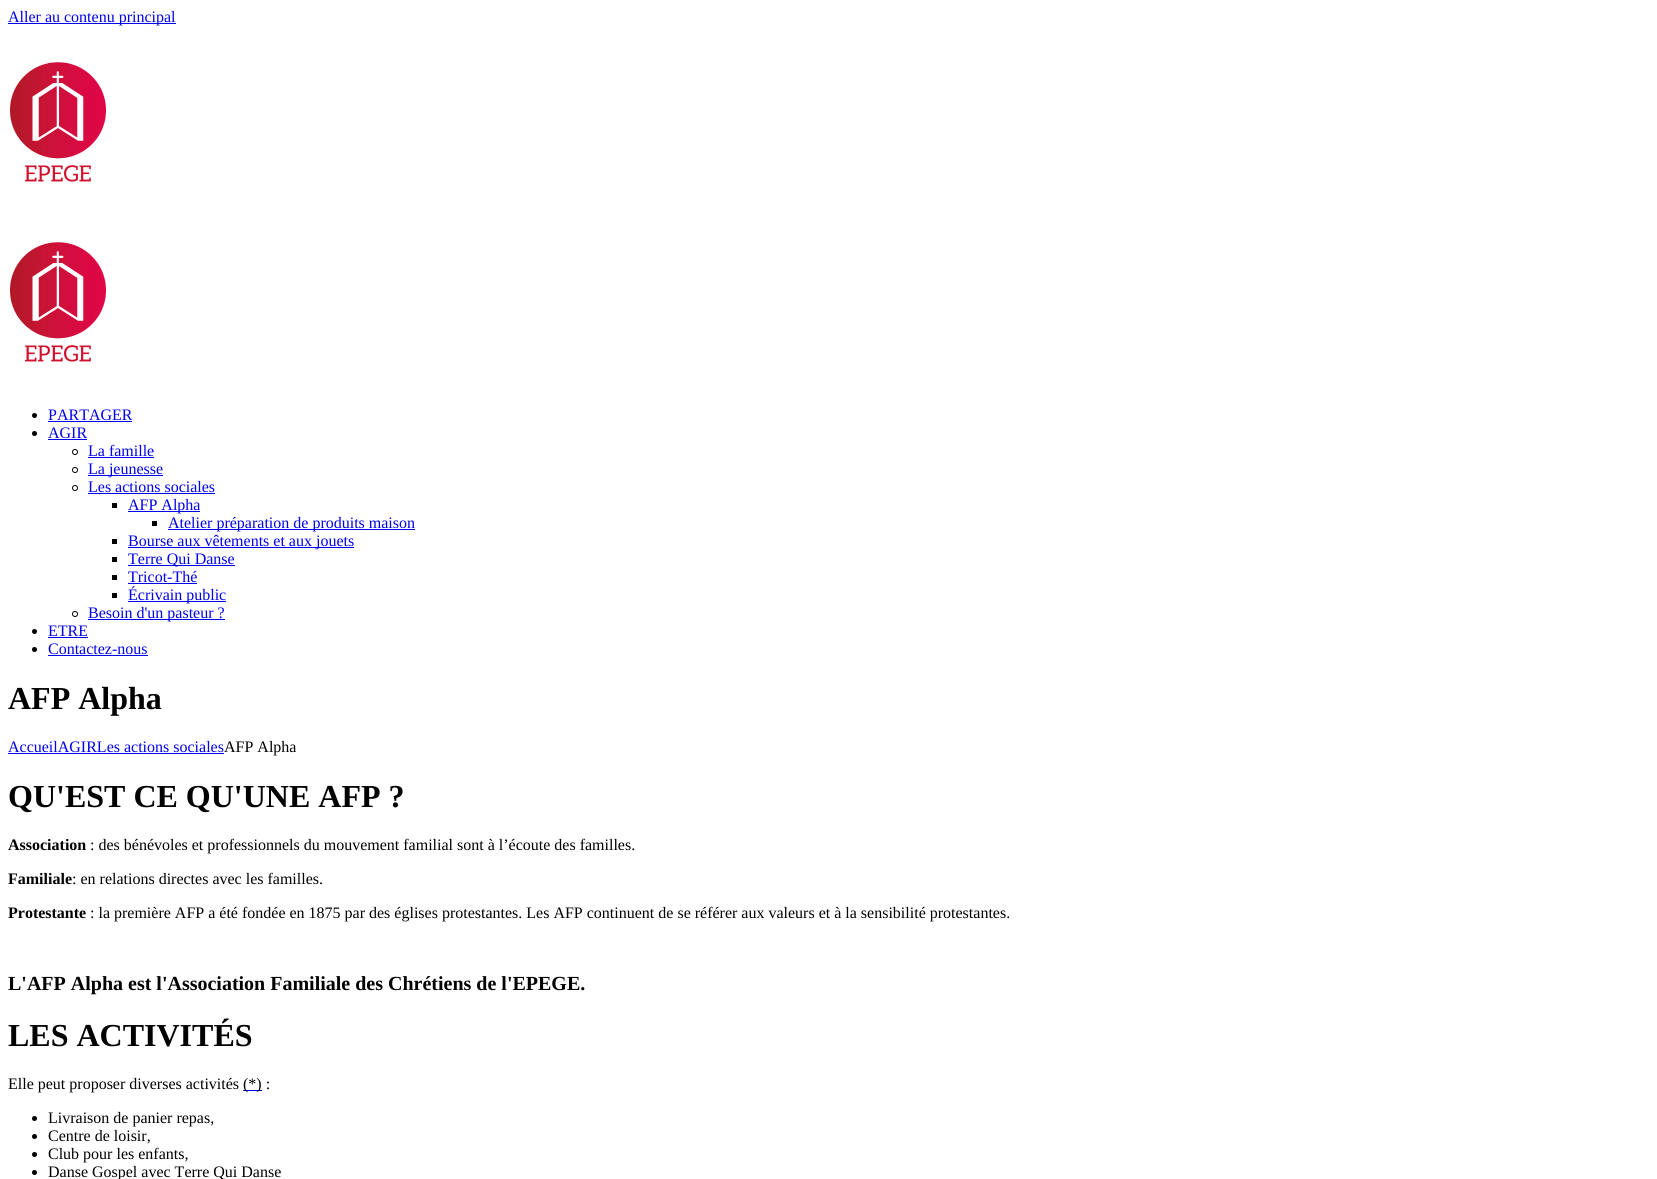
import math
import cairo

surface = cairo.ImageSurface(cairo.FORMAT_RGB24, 1657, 1179)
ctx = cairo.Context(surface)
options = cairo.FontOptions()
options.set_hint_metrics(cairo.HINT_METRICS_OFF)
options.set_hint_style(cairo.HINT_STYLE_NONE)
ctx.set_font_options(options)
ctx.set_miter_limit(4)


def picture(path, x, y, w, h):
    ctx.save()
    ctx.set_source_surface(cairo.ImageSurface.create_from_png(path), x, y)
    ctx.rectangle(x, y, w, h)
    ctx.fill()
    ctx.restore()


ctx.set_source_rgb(1, 1, 1)
ctx.paint()
ctx.set_source_rgb(0, 0, 0.933)
ctx.rectangle(8, 23, 168, 1)
ctx.fill()
ctx.select_font_face("Liberation Serif")
ctx.set_font_size(16)
ctx.move_to(8, 22)
ctx.show_text("Aller au contenu principal")
picture("img1.png", 10, 62, 96, 120)
picture("img1.png", 10, 242, 96, 120)
ctx.set_source_rgb(0, 0, 0)
ctx.arc(34.5, 415.5, 2.5, 0, 2 * math.pi)
ctx.fill()
ctx.set_source_rgb(0, 0, 0.933)
ctx.move_to(48, 420)
ctx.show_text("PARTAGER")
ctx.rectangle(48, 421, 84, 1)
ctx.fill()
ctx.set_source_rgb(0, 0, 0)
ctx.arc(34.5, 433.5, 2.5, 0, 2 * math.pi)
ctx.fill()
ctx.set_source_rgb(0, 0, 0.933)
ctx.move_to(48, 438)
ctx.show_text("AGIR")
ctx.rectangle(48, 439, 39, 1)
ctx.fill()
ctx.arc(75, 452, 2.5, 0, 2 * math.pi)
ctx.set_source_rgb(0, 0, 0)
ctx.set_line_width(1)
ctx.stroke()
ctx.set_source_rgb(0, 0, 0.933)
ctx.move_to(88, 456)
ctx.show_text("La famille")
ctx.rectangle(88, 457, 66, 1)
ctx.fill()
ctx.arc(75, 470, 2.5, 0, 2 * math.pi)
ctx.set_source_rgb(0, 0, 0)
ctx.stroke()
ctx.set_source_rgb(0, 0, 0.933)
ctx.rectangle(88, 475, 75, 1)
ctx.fill()
ctx.move_to(88, 474)
ctx.show_text("La jeunesse")
ctx.new_path()
ctx.arc(75, 488, 2.5, 0, 2 * math.pi)
ctx.set_source_rgb(0, 0, 0)
ctx.stroke()
ctx.set_source_rgb(0, 0, 0.933)
ctx.move_to(88, 492)
ctx.show_text("Les actions sociales")
ctx.rectangle(88, 493, 127, 1)
ctx.fill()
ctx.set_source_rgb(0, 0, 0)
ctx.rectangle(112, 503, 5, 5)
ctx.fill()
ctx.set_source_rgb(0, 0, 0.933)
ctx.rectangle(128, 511, 72, 1)
ctx.fill()
ctx.move_to(128, 510)
ctx.show_text("AFP Alpha")
ctx.set_source_rgb(0, 0, 0)
ctx.rectangle(152, 521, 5, 5)
ctx.fill()
ctx.set_source_rgb(0, 0, 0.933)
ctx.rectangle(168, 529, 247, 1)
ctx.fill()
ctx.move_to(168, 528)
ctx.show_text("Atelier préparation de produits maison")
ctx.set_source_rgb(0, 0, 0)
ctx.rectangle(112, 539, 5, 5)
ctx.fill()
ctx.set_source_rgb(0, 0, 0.933)
ctx.rectangle(128, 547, 226, 1)
ctx.fill()
ctx.move_to(128, 546)
ctx.show_text("Bourse aux vêtements et aux jouets")
ctx.set_source_rgb(0, 0, 0)
ctx.rectangle(112, 557, 5, 5)
ctx.fill()
ctx.set_source_rgb(0, 0, 0.933)
ctx.rectangle(128, 565, 107, 1)
ctx.fill()
ctx.move_to(128, 564)
ctx.show_text("Terre Qui Danse")
ctx.set_source_rgb(0, 0, 0)
ctx.rectangle(112, 575, 5, 5)
ctx.fill()
ctx.set_source_rgb(0, 0, 0.933)
ctx.move_to(128, 582)
ctx.show_text("Tricot-Thé")
ctx.rectangle(128, 583, 69, 1)
ctx.fill()
ctx.set_source_rgb(0, 0, 0)
ctx.rectangle(112, 593, 5, 5)
ctx.fill()
ctx.set_source_rgb(0, 0, 0.933)
ctx.rectangle(128, 601, 98, 1)
ctx.fill()
ctx.move_to(128, 600)
ctx.show_text("Écrivain public")
ctx.new_path()
ctx.arc(75, 614, 2.5, 0, 2 * math.pi)
ctx.set_source_rgb(0, 0, 0)
ctx.stroke()
ctx.set_source_rgb(0, 0, 0.933)
ctx.rectangle(88, 619, 137, 1)
ctx.fill()
ctx.move_to(88, 618)
ctx.show_text("Besoin d'un pasteur ?")
ctx.set_source_rgb(0, 0, 0)
ctx.new_path()
ctx.arc(34.5, 631.5, 2.5, 0, 2 * math.pi)
ctx.fill()
ctx.set_source_rgb(0, 0, 0.933)
ctx.move_to(48, 636)
ctx.show_text("ETRE")
ctx.rectangle(48, 637, 40, 1)
ctx.fill()
ctx.set_source_rgb(0, 0, 0)
ctx.arc(34.5, 649.5, 2.5, 0, 2 * math.pi)
ctx.fill()
ctx.set_source_rgb(0, 0, 0.933)
ctx.move_to(48, 654)
ctx.show_text("Contactez-nous")
ctx.rectangle(48, 655, 100, 1)
ctx.fill()
ctx.select_font_face("Liberation Serif", cairo.FONT_SLANT_NORMAL, cairo.FONT_WEIGHT_BOLD)
ctx.set_font_size(32)
ctx.set_source_rgb(0, 0, 0)
ctx.move_to(8, 709)
ctx.show_text("AFP Alpha")
ctx.select_font_face("Liberation Serif")
ctx.set_font_size(16)
ctx.set_source_rgb(0, 0, 0.933)
ctx.move_to(8, 752)
ctx.show_text("AccueilAGIRLes actions sociales")
ctx.rectangle(8, 753, 216, 1)
ctx.fill()
ctx.set_source_rgb(0, 0, 0)
ctx.move_to(224, 752)
ctx.show_text("AFP Alpha")
ctx.select_font_face("Liberation Serif", cairo.FONT_SLANT_NORMAL, cairo.FONT_WEIGHT_BOLD)
ctx.set_font_size(32)
ctx.move_to(8, 807)
ctx.show_text("QU'EST CE QU'UNE AFP ?")
ctx.set_font_size(16)
ctx.move_to(8, 850)
ctx.show_text("Association")
ctx.select_font_face("Liberation Serif")
ctx.move_to(90, 850)
ctx.show_text(": des bénévoles et professionnels du mouvement familial sont à l’écoute des familles.")
ctx.select_font_face("Liberation Serif", cairo.FONT_SLANT_NORMAL, cairo.FONT_WEIGHT_BOLD)
ctx.move_to(8, 884)
ctx.show_text("Familiale")
ctx.select_font_face("Liberation Serif")
ctx.move_to(72, 884)
ctx.show_text(": en relations directes avec les familles.")
ctx.select_font_face("Liberation Serif", cairo.FONT_SLANT_NORMAL, cairo.FONT_WEIGHT_BOLD)
ctx.move_to(8, 918)
ctx.show_text("Protestante")
ctx.select_font_face("Liberation Serif")
ctx.move_to(90, 918)
ctx.show_text(": la première AFP a été fondée en 1875 par des églises protestantes. Les AFP continuent de se référer aux valeurs et à la sensibilité protestantes.")
ctx.select_font_face("Liberation Serif", cairo.FONT_SLANT_NORMAL, cairo.FONT_WEIGHT_BOLD)
ctx.set_font_size(20)
ctx.move_to(8, 990)
ctx.show_text("L'AFP Alpha est l'Association Familiale des Chrétiens de l'EPEGE.")
ctx.set_font_size(32)
ctx.move_to(8, 1046)
ctx.show_text("LES ACTIVITÉS")
ctx.select_font_face("Liberation Serif")
ctx.set_font_size(16)
ctx.move_to(8, 1089)
ctx.show_text("Elle peut proposer diverses activités")
ctx.set_source_rgb(0, 0, 0.933)
ctx.rectangle(243, 1090, 19, 1)
ctx.fill()
ctx.set_source_rgb(0, 0, 0)
ctx.move_to(243, 1089)
ctx.show_text("(*) :")
ctx.new_path()
ctx.arc(34.5, 1118.5, 2.5, 0, 2 * math.pi)
ctx.fill()
ctx.move_to(48, 1123)
ctx.show_text("Livraison de panier repas,")
ctx.new_path()
ctx.arc(34.5, 1136.5, 2.5, 0, 2 * math.pi)
ctx.fill()
ctx.move_to(48, 1141)
ctx.show_text("Centre de loisir,")
ctx.new_path()
ctx.arc(34.5, 1154.5, 2.5, 0, 2 * math.pi)
ctx.fill()
ctx.move_to(48, 1159)
ctx.show_text("Club pour les enfants,")
ctx.new_path()
ctx.arc(34.5, 1172.5, 2.5, 0, 2 * math.pi)
ctx.fill()
ctx.move_to(48, 1177)
ctx.show_text("Danse Gospel avec Terre Qui Danse")
surface.write_to_png("page.png")
